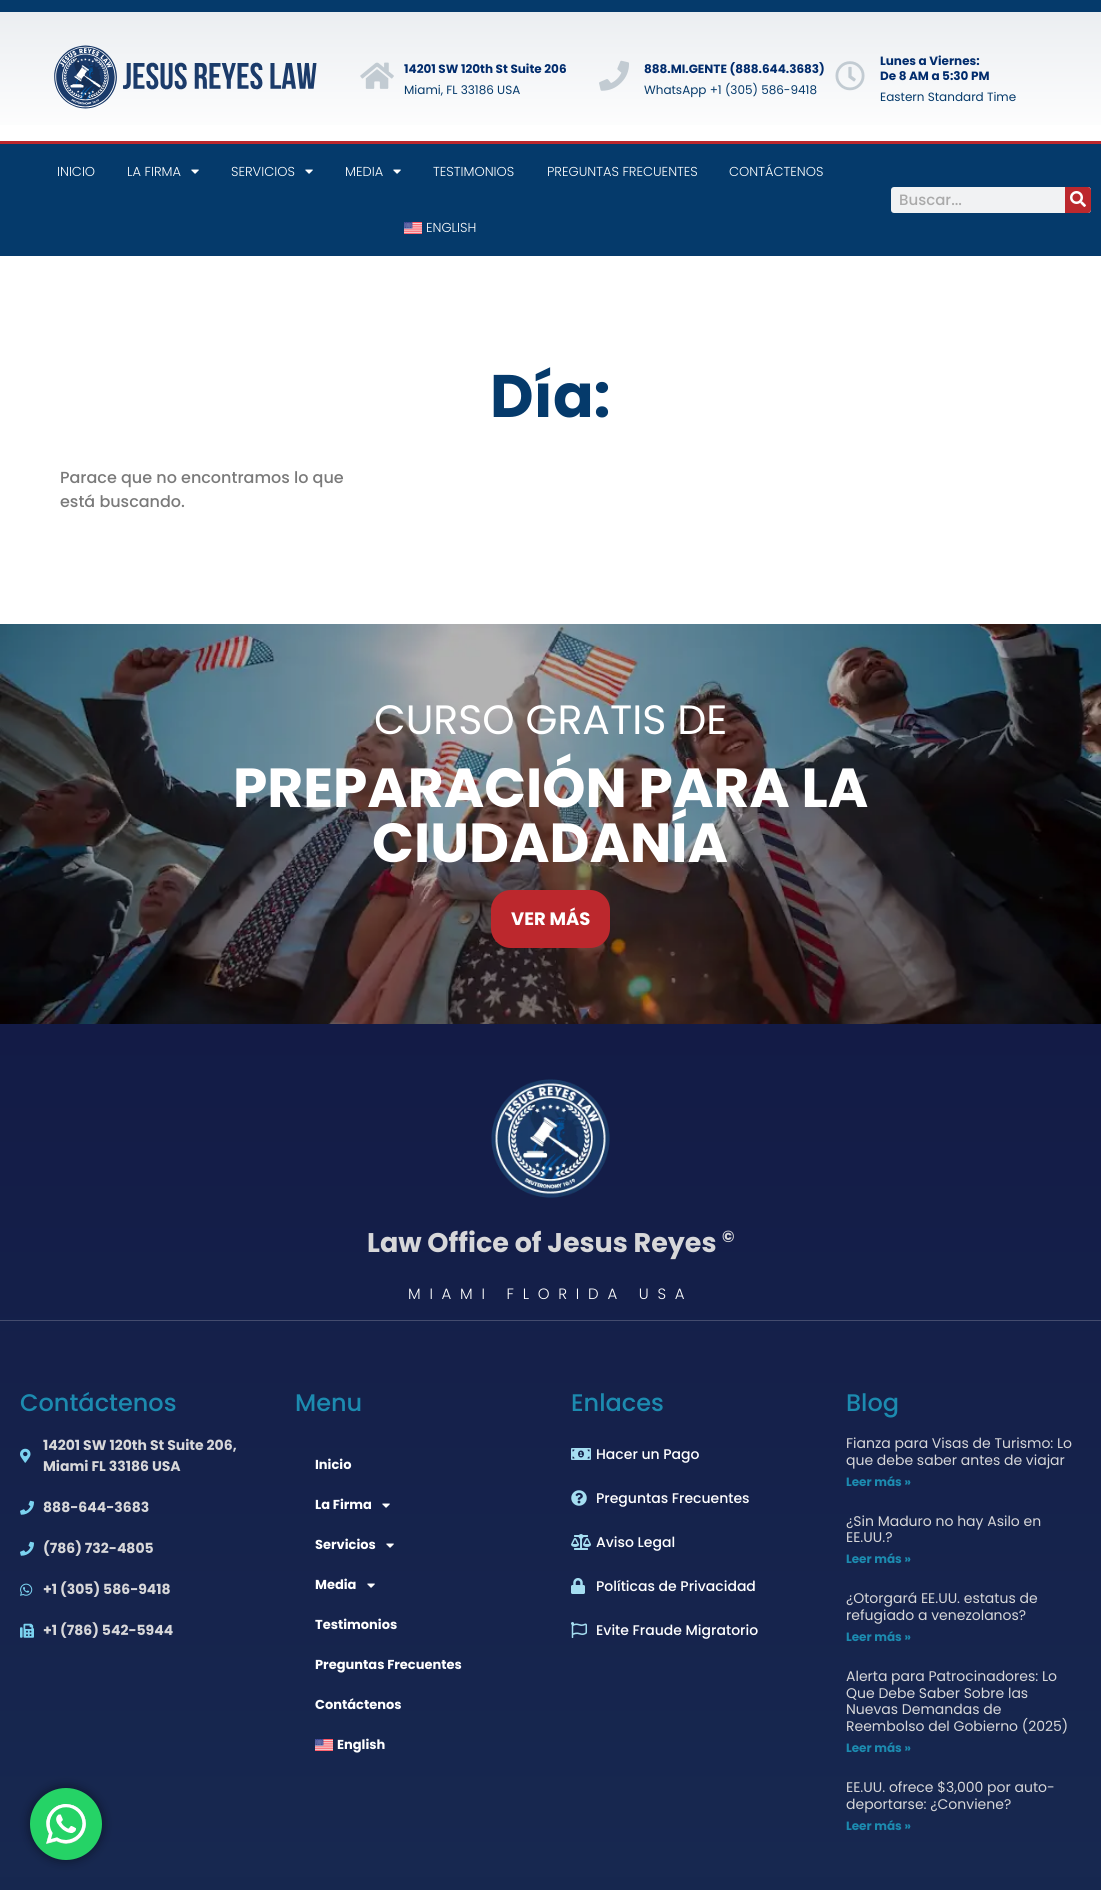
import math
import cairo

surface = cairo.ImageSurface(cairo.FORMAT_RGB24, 1101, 1890)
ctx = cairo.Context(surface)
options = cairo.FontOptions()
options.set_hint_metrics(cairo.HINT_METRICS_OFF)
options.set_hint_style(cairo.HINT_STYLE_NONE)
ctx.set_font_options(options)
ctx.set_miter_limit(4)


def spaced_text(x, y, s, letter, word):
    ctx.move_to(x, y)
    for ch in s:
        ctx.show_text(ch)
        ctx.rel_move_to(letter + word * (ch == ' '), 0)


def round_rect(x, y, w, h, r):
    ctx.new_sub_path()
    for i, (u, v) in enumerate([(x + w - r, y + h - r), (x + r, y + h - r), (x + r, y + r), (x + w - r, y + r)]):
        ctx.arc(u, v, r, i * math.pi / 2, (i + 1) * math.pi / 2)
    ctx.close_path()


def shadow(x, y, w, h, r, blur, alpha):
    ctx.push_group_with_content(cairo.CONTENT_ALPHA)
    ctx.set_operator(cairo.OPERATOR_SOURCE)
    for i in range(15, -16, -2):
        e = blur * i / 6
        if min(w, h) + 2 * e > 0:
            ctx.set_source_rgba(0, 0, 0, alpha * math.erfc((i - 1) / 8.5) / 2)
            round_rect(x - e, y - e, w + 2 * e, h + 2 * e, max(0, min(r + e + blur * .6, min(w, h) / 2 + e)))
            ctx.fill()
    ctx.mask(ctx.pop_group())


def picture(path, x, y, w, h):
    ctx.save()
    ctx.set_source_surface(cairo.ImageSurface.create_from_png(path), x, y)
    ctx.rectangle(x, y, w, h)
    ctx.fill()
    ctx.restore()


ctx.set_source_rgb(1, 1, 1)
ctx.paint()
ctx.set_source_rgb(0.02, 0.227, 0.42)
ctx.rectangle(0, 0, 1101, 12)
ctx.fill()
gradient = cairo.LinearGradient(551, 12, 551, 141)
gradient.add_color_stop_rgba(0, 0.922, 0.933, 0.945, 1)
gradient.add_color_stop_rgba(1, 1, 1, 1, 1)
ctx.set_source(gradient)
ctx.rectangle(0, 12, 1101, 113)
ctx.fill()
picture("img1.png", 54, 45, 263, 64)
picture("img2.png", 360, 62, 34, 27)
ctx.select_font_face("Poppins", cairo.FONT_SLANT_NORMAL, cairo.FONT_WEIGHT_BOLD)
ctx.set_font_size(12)
ctx.set_source_rgb(0.004, 0.173, 0.427)
ctx.move_to(404, 73)
ctx.show_text("14201 SW 120th St Suite 206")
ctx.select_font_face("Poppins")
ctx.set_source_rgb(0.02, 0.227, 0.42)
ctx.move_to(404, 94)
ctx.show_text("Miami, FL 33186 USA")
picture("img3.png", 599, 60, 30, 31)
ctx.select_font_face("Poppins", cairo.FONT_SLANT_NORMAL, cairo.FONT_WEIGHT_BOLD)
ctx.set_source_rgb(0.004, 0.173, 0.427)
ctx.move_to(644, 73)
ctx.show_text("888.MI.GENTE (888.644.3683)")
ctx.select_font_face("Poppins")
ctx.set_source_rgb(0.02, 0.227, 0.42)
ctx.move_to(644, 94)
ctx.show_text("WhatsApp +1 (305) 586-9418")
picture("img4.png", 835, 61, 30, 30)
ctx.select_font_face("Poppins", cairo.FONT_SLANT_NORMAL, cairo.FONT_WEIGHT_BOLD)
ctx.set_source_rgb(0.004, 0.173, 0.427)
ctx.move_to(880, 65)
ctx.show_text("Lunes a Viernes:")
ctx.move_to(880, 80)
ctx.show_text("De 8 AM a 5:30 PM")
ctx.select_font_face("Poppins")
ctx.set_source_rgb(0.02, 0.227, 0.42)
ctx.move_to(880, 101)
ctx.show_text("Eastern Standard Time")
ctx.rectangle(0, 144, 1101, 112)
ctx.fill()
ctx.set_source_rgb(0.737, 0.157, 0.176)
ctx.rectangle(0, 141, 1101, 3)
ctx.fill()
ctx.select_font_face("Poppins Light")
ctx.set_font_size(13)
ctx.set_source_rgb(1, 1, 1)
ctx.move_to(57, 176)
ctx.show_text("INICIO")
ctx.move_to(127, 176)
ctx.show_text("LA FIRMA")
picture("img5.png", 191, 169, 8, 5)
ctx.move_to(231, 176)
ctx.show_text("SERVICIOS")
picture("img5.png", 305, 169, 8, 5)
ctx.move_to(345, 176)
ctx.show_text("MEDIA")
picture("img5.png", 393, 169, 8, 5)
ctx.move_to(433, 176)
ctx.show_text("TESTIMONIOS")
ctx.move_to(547, 176)
ctx.show_text("PREGUNTAS FRECUENTES")
ctx.move_to(729, 176)
ctx.show_text("CONTÁCTENOS")
picture("img6.png", 404, 222, 18, 12)
ctx.move_to(426, 232)
ctx.show_text("ENGLISH")
ctx.set_source_rgb(0.945, 0.949, 0.953)
round_rect(891, 187, 200, 26, 3)
ctx.fill()
ctx.select_font_face("Poppins Medium")
ctx.set_font_size(15)
ctx.set_source_rgb(0.667, 0.667, 0.667)
ctx.move_to(899, 205)
ctx.show_text("Buscar...")
ctx.set_source_rgb(0.737, 0.157, 0.176)
ctx.new_path()
ctx.move_to(1065, 187)
ctx.line_to(1088, 187)
ctx.curve_to(1089.5, 187, 1091, 188.5, 1091, 190)
ctx.line_to(1091, 210)
ctx.curve_to(1091, 211.5, 1089.5, 213, 1088, 213)
ctx.line_to(1065, 213)
ctx.close_path()
ctx.fill()
picture("img7.png", 1070, 191, 16, 16)
ctx.select_font_face("Poppins", cairo.FONT_SLANT_NORMAL, cairo.FONT_WEIGHT_BOLD)
ctx.set_font_size(60)
ctx.set_source_rgb(0.02, 0.227, 0.42)
ctx.move_to(490, 417)
ctx.show_text("Día:")
ctx.select_font_face("Poppins Medium")
ctx.set_font_size(16)
ctx.set_source_rgb(0.478, 0.478, 0.478)
ctx.move_to(60, 483)
ctx.show_text("Parace que no encontramos lo que")
ctx.move_to(60, 507)
ctx.show_text("está buscando.")
picture("img8.png", 0, 624, 1101, 400)
ctx.select_font_face("Poppins")
ctx.set_font_size(41)
ctx.set_source_rgb(1, 1, 1)
ctx.move_to(374, 734)
ctx.show_text("CURSO GRATIS DE")
ctx.select_font_face("Poppins", cairo.FONT_SLANT_NORMAL, cairo.FONT_WEIGHT_BOLD)
ctx.set_font_size(55)
ctx.move_to(233, 807)
ctx.show_text("PREPARACIÓN PARA LA")
ctx.move_to(372, 862)
ctx.show_text("CIUDADANÍA")
ctx.set_source_rgb(0.737, 0.157, 0.176)
round_rect(491, 890, 119, 58, 20)
ctx.fill()
ctx.set_font_size(18)
ctx.set_source_rgb(1, 1, 1)
ctx.move_to(511, 925)
ctx.show_text("VER MÁS")
gradient = cairo.LinearGradient(551, 1024, 551, 1877)
gradient.add_color_stop_rgba(0, 0.075, 0.106, 0.275, 1)
gradient.add_color_stop_rgba(1, 0.09, 0.157, 0.314, 1)
ctx.set_source(gradient)
ctx.rectangle(0, 1024, 1101, 853)
ctx.fill()
ctx.set_source_rgb(0.267, 0.298, 0.431)
ctx.rectangle(0, 1320, 1101, 1)
ctx.fill()
picture("img9.png", 491, 1079, 119, 119)
ctx.set_font_size(27)
ctx.set_source_rgb(0.843, 0.843, 0.851)
ctx.move_to(367, 1252)
ctx.show_text("Law Office of Jesus Reyes")
ctx.set_font_size(16)
ctx.move_to(722, 1242)
ctx.show_text("©")
ctx.select_font_face("Poppins Light")
ctx.set_font_size(15)
ctx.set_source_rgb(1, 1, 1)
spaced_text(408, 1299, "MIAMI FLORIDA USA", 8.75, 0)
ctx.select_font_face("Poppins Medium")
ctx.set_font_size(24)
ctx.set_source_rgb(0.11, 0.545, 0.69)
ctx.move_to(20, 1411)
ctx.show_text("Contáctenos")
picture("img10.png", 20, 1448, 11, 15)
ctx.select_font_face("Poppins", cairo.FONT_SLANT_NORMAL, cairo.FONT_WEIGHT_BOLD)
ctx.set_font_size(14)
ctx.set_source_rgb(0.843, 0.843, 0.851)
ctx.move_to(43, 1450)
ctx.show_text("14201 SW 120th St Suite 206,")
ctx.move_to(43, 1471)
ctx.show_text("Miami FL 33186 USA")
picture("img11.png", 20, 1500, 14, 15)
ctx.move_to(43, 1512)
ctx.show_text("888-644-3683")
picture("img12.png", 20, 1541, 14, 15)
ctx.move_to(43, 1553)
ctx.show_text("(786) 732-4805")
picture("img13.png", 20, 1583, 13, 13)
ctx.move_to(43, 1594)
ctx.show_text("+1 (305) 586-9418")
picture("img14.png", 20, 1623, 14, 15)
ctx.move_to(43, 1635)
ctx.show_text("+1 (786) 542-5944")
ctx.select_font_face("Poppins Medium")
ctx.set_font_size(24)
ctx.set_source_rgb(0.11, 0.545, 0.69)
ctx.move_to(295, 1411)
ctx.show_text("Menu")
ctx.select_font_face("Poppins", cairo.FONT_SLANT_NORMAL, cairo.FONT_WEIGHT_BOLD)
ctx.set_font_size(13)
ctx.set_source_rgb(1, 1, 1)
ctx.move_to(315, 1469)
ctx.show_text("Inicio")
ctx.move_to(315, 1509)
ctx.show_text("La Firma")
picture("img15.png", 382, 1503, 8, 5)
ctx.move_to(315, 1549)
ctx.show_text("Servicios")
picture("img16.png", 386, 1543, 8, 5)
ctx.move_to(315, 1589)
ctx.show_text("Media")
picture("img17.png", 367, 1583, 8, 5)
ctx.move_to(315, 1629)
ctx.show_text("Testimonios")
ctx.move_to(315, 1669)
ctx.show_text("Preguntas Frecuentes")
ctx.move_to(315, 1709)
ctx.show_text("Contáctenos")
picture("img6.png", 315, 1739, 18, 12)
ctx.move_to(337, 1749)
ctx.show_text("English")
ctx.select_font_face("Poppins Medium")
ctx.set_font_size(24)
ctx.set_source_rgb(0.11, 0.545, 0.69)
ctx.move_to(571, 1411)
ctx.show_text("Enlaces")
picture("img18.png", 571, 1448, 20, 12)
ctx.set_font_size(14)
ctx.set_source_rgb(1, 1, 1)
ctx.move_to(596, 1459)
ctx.show_text("Hacer un Pago")
picture("img19.png", 571, 1490, 16, 16)
ctx.move_to(596, 1503)
ctx.show_text("Preguntas Frecuentes")
picture("img20.png", 571, 1534, 20, 16)
ctx.move_to(596, 1547)
ctx.show_text("Aviso Legal")
picture("img21.png", 571, 1578, 14, 16)
ctx.move_to(596, 1591)
ctx.show_text("Políticas de Privacidad")
picture("img22.png", 571, 1622, 16, 16)
ctx.move_to(596, 1635)
ctx.show_text("Evite Fraude Migratorio")
ctx.set_font_size(24)
ctx.set_source_rgb(0.11, 0.545, 0.69)
ctx.move_to(846, 1411)
ctx.show_text("Blog")
ctx.select_font_face("Poppins")
ctx.set_font_size(14)
ctx.set_source_rgb(0.843, 0.843, 0.851)
ctx.move_to(846, 1448)
ctx.show_text("Fianza para Visas de Turismo: Lo")
ctx.move_to(846, 1465)
ctx.show_text("que debe saber antes de viajar")
ctx.select_font_face("Poppins", cairo.FONT_SLANT_NORMAL, cairo.FONT_WEIGHT_BOLD)
ctx.set_font_size(12)
ctx.set_source_rgb(0.11, 0.545, 0.69)
ctx.move_to(846, 1486)
ctx.show_text("Leer más »")
ctx.select_font_face("Poppins")
ctx.set_font_size(14)
ctx.set_source_rgb(0.843, 0.843, 0.851)
ctx.move_to(846, 1526)
ctx.show_text("¿Sin Maduro no hay Asilo en")
ctx.move_to(846, 1542)
ctx.show_text("EE.UU.?")
ctx.select_font_face("Poppins", cairo.FONT_SLANT_NORMAL, cairo.FONT_WEIGHT_BOLD)
ctx.set_font_size(12)
ctx.set_source_rgb(0.11, 0.545, 0.69)
ctx.move_to(846, 1563)
ctx.show_text("Leer más »")
ctx.select_font_face("Poppins")
ctx.set_font_size(14)
ctx.set_source_rgb(0.843, 0.843, 0.851)
ctx.move_to(846, 1603)
ctx.show_text("¿Otorgará EE.UU. estatus de")
ctx.move_to(846, 1620)
ctx.show_text("refugiado a venezolanos?")
ctx.select_font_face("Poppins", cairo.FONT_SLANT_NORMAL, cairo.FONT_WEIGHT_BOLD)
ctx.set_font_size(12)
ctx.set_source_rgb(0.11, 0.545, 0.69)
ctx.move_to(846, 1641)
ctx.show_text("Leer más »")
ctx.select_font_face("Poppins")
ctx.set_font_size(14)
ctx.set_source_rgb(0.843, 0.843, 0.851)
ctx.move_to(846, 1681)
ctx.show_text("Alerta para Patrocinadores: Lo")
ctx.move_to(846, 1698)
ctx.show_text("Que Debe Saber Sobre las")
ctx.move_to(846, 1714)
ctx.show_text("Nuevas Demandas de")
ctx.move_to(846, 1731)
ctx.show_text("Reembolso del Gobierno (2025)")
ctx.select_font_face("Poppins", cairo.FONT_SLANT_NORMAL, cairo.FONT_WEIGHT_BOLD)
ctx.set_font_size(12)
ctx.set_source_rgb(0.11, 0.545, 0.69)
ctx.move_to(846, 1752)
ctx.show_text("Leer más »")
ctx.select_font_face("Poppins")
ctx.set_font_size(14)
ctx.set_source_rgb(0.843, 0.843, 0.851)
ctx.move_to(846, 1792)
ctx.show_text("EE.UU. ofrece $3,000 por auto-")
ctx.move_to(846, 1809)
ctx.show_text("deportarse: ¿Conviene?")
ctx.select_font_face("Poppins", cairo.FONT_SLANT_NORMAL, cairo.FONT_WEIGHT_BOLD)
ctx.set_font_size(12)
ctx.set_source_rgb(0.11, 0.545, 0.69)
ctx.move_to(846, 1830)
ctx.show_text("Leer más »")
ctx.set_source_rgb(0.086, 0.153, 0.31)
ctx.rectangle(0, 1877, 1101, 13)
ctx.fill()
ctx.set_source_rgb(0, 0, 0)
shadow(30, 1788, 72, 72, 36, 5.5, 0.5)
ctx.set_source_rgb(0.145, 0.827, 0.4)
ctx.arc(66, 1824, 36, 0, 2 * math.pi)
ctx.fill()
picture("img23.png", 46, 1804, 40, 40)
surface.write_to_png("page.png")
